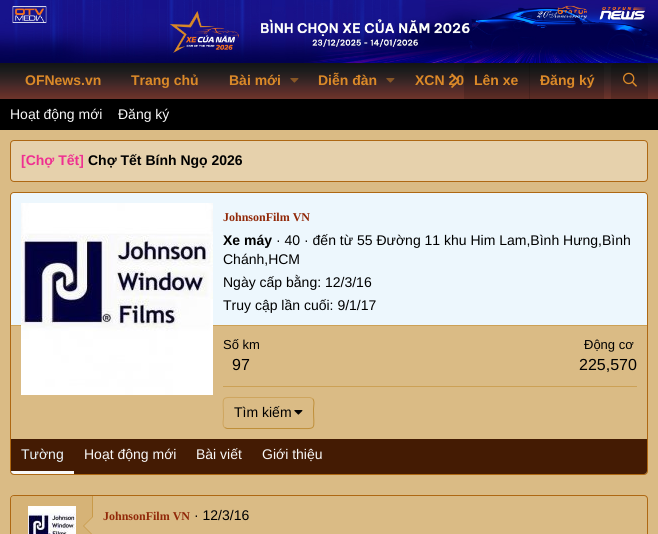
import math
import cairo

surface = cairo.ImageSurface(cairo.FORMAT_RGB24, 658, 534)
ctx = cairo.Context(surface)
options = cairo.FontOptions()
options.set_hint_metrics(cairo.HINT_METRICS_OFF)
options.set_hint_style(cairo.HINT_STYLE_NONE)
ctx.set_font_options(options)
ctx.set_miter_limit(4)


def round_rect(x, y, w, h, r):
    ctx.new_sub_path()
    for i, (u, v) in enumerate([(x + w - r, y + h - r), (x + r, y + h - r), (x + r, y + r), (x + w - r, y + r)]):
        ctx.arc(u, v, r, i * math.pi / 2, (i + 1) * math.pi / 2)
    ctx.close_path()


def picture(path, x, y, w, h):
    ctx.save()
    ctx.set_source_surface(cairo.ImageSurface.create_from_png(path), x, y)
    ctx.rectangle(x, y, w, h)
    ctx.fill()
    ctx.restore()


ctx.set_source_rgb(0.855, 0.733, 0.522)
ctx.paint()
picture("img1.png", 0, 0, 658, 63)
picture("img2.png", 0, 63, 658, 36)
ctx.select_font_face("Liberation Sans", cairo.FONT_SLANT_NORMAL, cairo.FONT_WEIGHT_BOLD)
ctx.set_font_size(14)
ctx.set_source_rgb(0.859, 0.537, 0.157)
ctx.move_to(25, 85)
ctx.show_text("OFNews.vn")
ctx.move_to(131, 85)
ctx.show_text("Trang chủ")
ctx.move_to(229, 85)
ctx.show_text("Bài mới")
picture("img3.png", 290, 78, 9, 5)
ctx.move_to(318, 85)
ctx.show_text("Diễn đàn")
picture("img3.png", 386, 78, 9, 5)
ctx.move_to(415, 85)
ctx.show_text("XCN 20")
picture("img4.png", 451, 73, 9, 15)
ctx.set_source_rgba(0, 0, 0, 0.15)
ctx.new_path()
ctx.move_to(468, 63)
ctx.line_to(600, 63)
ctx.curve_to(602, 63, 604, 65, 604, 67)
ctx.line_to(604, 99)
ctx.line_to(464, 99)
ctx.line_to(464, 67)
ctx.curve_to(464, 65, 466, 63, 468, 63)
ctx.close_path()
ctx.fill()
ctx.set_source_rgb(0.859, 0.537, 0.157)
ctx.move_to(474, 85)
ctx.show_text("Lên xe")
ctx.set_source_rgba(0, 0, 0, 0.15)
ctx.rectangle(529, 63, 1, 36)
ctx.fill()
ctx.set_source_rgb(0.859, 0.537, 0.157)
ctx.move_to(540, 85)
ctx.show_text("Đăng ký")
ctx.set_source_rgba(0, 0, 0, 0.15)
ctx.new_path()
ctx.move_to(615, 63)
ctx.line_to(644, 63)
ctx.curve_to(646, 63, 648, 65, 648, 67)
ctx.line_to(648, 99)
ctx.line_to(611, 99)
ctx.line_to(611, 67)
ctx.curve_to(611, 65, 613, 63, 615, 63)
ctx.close_path()
ctx.fill()
picture("img5.png", 623, 72, 14, 15)
ctx.set_source_rgb(0, 0, 0)
ctx.rectangle(0, 99, 658, 31)
ctx.fill()
ctx.select_font_face("Liberation Sans")
ctx.set_source_rgb(0.969, 0.969, 0.969)
ctx.move_to(10, 119)
ctx.show_text("Hoạt động mới")
ctx.move_to(118, 119)
ctx.show_text("Đăng ký")
ctx.set_source_rgb(0.902, 0.82, 0.675)
round_rect(10.5, 140.5, 637, 41, 3.5)
ctx.fill_preserve()
ctx.set_source_rgb(0.682, 0.408, 0.078)
ctx.set_line_width(1)
ctx.stroke()
ctx.select_font_face("Liberation Sans", cairo.FONT_SLANT_NORMAL, cairo.FONT_WEIGHT_BOLD)
ctx.set_source_rgb(0.937, 0.188, 0.569)
ctx.move_to(21, 165)
ctx.show_text("[Chợ Tết]")
ctx.set_source_rgb(0, 0, 0)
ctx.move_to(88, 165)
ctx.show_text("Chợ Tết Bính Ngọ 2026")
round_rect(10.5, 192.5, 637, 282, 3.5)
ctx.set_source_rgb(0.682, 0.408, 0.078)
ctx.stroke()
ctx.set_source_rgb(0.929, 0.965, 0.992)
ctx.new_path()
ctx.move_to(14, 193)
ctx.line_to(644, 193)
ctx.curve_to(645.5, 193, 647, 194.5, 647, 196)
ctx.line_to(647, 326)
ctx.line_to(11, 326)
ctx.line_to(11, 196)
ctx.curve_to(11, 194.5, 12.5, 193, 14, 193)
ctx.close_path()
ctx.fill()
ctx.set_source_rgb(0.8, 0.631, 0.337)
ctx.rectangle(11, 325, 636, 1)
ctx.fill()
picture("img6.png", 21, 203, 192, 192)
ctx.select_font_face("Liberation Serif", cairo.FONT_SLANT_NORMAL, cairo.FONT_WEIGHT_BOLD)
ctx.set_font_size(12)
ctx.set_source_rgb(0.569, 0.157, 0.035)
ctx.move_to(223, 221)
ctx.show_text("JohnsonFilm VN")
ctx.select_font_face("Liberation Sans", cairo.FONT_SLANT_NORMAL, cairo.FONT_WEIGHT_BOLD)
ctx.set_font_size(14)
ctx.set_source_rgb(0, 0, 0)
ctx.move_to(223, 245)
ctx.show_text("Xe máy")
ctx.select_font_face("Liberation Sans")
ctx.move_to(276, 245)
ctx.show_text("· 40 · đến từ 55 Đường 11 khu Him Lam,Bình Hưng,Bình")
ctx.move_to(223, 264)
ctx.show_text("Chánh,HCM")
ctx.move_to(223, 287)
ctx.show_text("Ngày cấp bằng: 12/3/16")
ctx.move_to(223, 310)
ctx.show_text("Truy cập lần cuối: 9/1/17")
ctx.set_font_size(13)
ctx.move_to(223, 349)
ctx.show_text("Số km")
ctx.set_font_size(16)
ctx.move_to(232, 370)
ctx.show_text("97")
ctx.set_font_size(13)
ctx.move_to(584, 349)
ctx.show_text("Động cơ")
ctx.set_font_size(16)
ctx.move_to(579, 370)
ctx.show_text("225,570")
ctx.set_source_rgb(0.8, 0.631, 0.337)
ctx.rectangle(223, 386, 414, 1)
ctx.fill()
ctx.new_path()
ctx.move_to(312.5, 398.5)
ctx.curve_to(315, 401, 313.5, 406, 313.5, 409)
ctx.curve_to(313.5, 431, 318, 428.5, 296, 428.5)
ctx.line_to(227, 428.5)
ctx.line_to(224.5, 427.5)
ctx.set_source_rgb(0.749, 0.561, 0.227)
ctx.stroke()
ctx.new_path()
ctx.move_to(224.5, 427.5)
ctx.curve_to(222, 425, 223.5, 420, 223.5, 417)
ctx.curve_to(223.5, 395, 219, 397.5, 241, 397.5)
ctx.line_to(310, 397.5)
ctx.line_to(312.5, 398.5)
ctx.set_source_rgb(0.808, 0.647, 0.369)
ctx.stroke()
ctx.set_font_size(14)
ctx.set_source_rgb(0, 0, 0)
ctx.move_to(234, 417)
ctx.show_text("Tìm kiếm")
picture("img7.png", 294, 410, 9, 5)
ctx.set_source_rgb(0.267, 0.106, 0.012)
ctx.new_path()
ctx.move_to(11, 439)
ctx.line_to(647, 439)
ctx.line_to(647, 471)
ctx.curve_to(647, 472.5, 645.5, 474, 644, 474)
ctx.line_to(14, 474)
ctx.curve_to(12.5, 474, 11, 472.5, 11, 471)
ctx.close_path()
ctx.fill()
ctx.set_source_rgb(0.969, 0.969, 0.969)
ctx.new_path()
ctx.move_to(11, 471)
ctx.line_to(74, 471)
ctx.line_to(74, 474)
ctx.line_to(14, 474)
ctx.curve_to(12.5, 474, 11, 472.5, 11, 471)
ctx.close_path()
ctx.fill()
ctx.set_source_rgb(0.929, 0.965, 0.992)
ctx.move_to(21, 459)
ctx.show_text("Tường")
ctx.set_source_rgb(0.969, 0.969, 0.969)
ctx.move_to(84, 459)
ctx.show_text("Hoạt động mới")
ctx.move_to(196, 459)
ctx.show_text("Bài viết")
ctx.move_to(262, 459)
ctx.show_text("Giới thiệu")
round_rect(10.5, 495.5, 637, 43, 3.5)
ctx.set_source_rgb(0.682, 0.408, 0.078)
ctx.stroke()
ctx.set_source_rgb(0.839, 0.702, 0.467)
ctx.new_path()
ctx.move_to(14, 496)
ctx.line_to(93, 496)
ctx.line_to(93, 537)
ctx.line_to(14, 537)
ctx.curve_to(12.5, 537, 11, 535.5, 11, 534)
ctx.line_to(11, 499)
ctx.curve_to(11, 497.5, 12.5, 496, 14, 496)
ctx.close_path()
ctx.fill()
ctx.set_source_rgb(0.784, 0.604, 0.29)
ctx.rectangle(92, 496, 1, 21)
ctx.fill()
picture("img8.png", 28, 506, 48, 28)
ctx.new_path()
ctx.move_to(93, 516)
ctx.line_to(93, 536)
ctx.line_to(83, 526)
ctx.close_path()
ctx.fill()
ctx.set_source_rgb(0.855, 0.733, 0.522)
ctx.new_path()
ctx.move_to(93, 517)
ctx.line_to(93, 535)
ctx.line_to(84, 526)
ctx.close_path()
ctx.fill()
ctx.select_font_face("Liberation Serif", cairo.FONT_SLANT_NORMAL, cairo.FONT_WEIGHT_BOLD)
ctx.set_font_size(12)
ctx.set_source_rgb(0.569, 0.157, 0.035)
ctx.move_to(103, 520)
ctx.show_text("JohnsonFilm VN")
ctx.select_font_face("Liberation Sans")
ctx.set_font_size(14)
ctx.set_source_rgb(0, 0, 0)
ctx.move_to(194, 520)
ctx.show_text("· 12/3/16")
surface.write_to_png("page.png")
